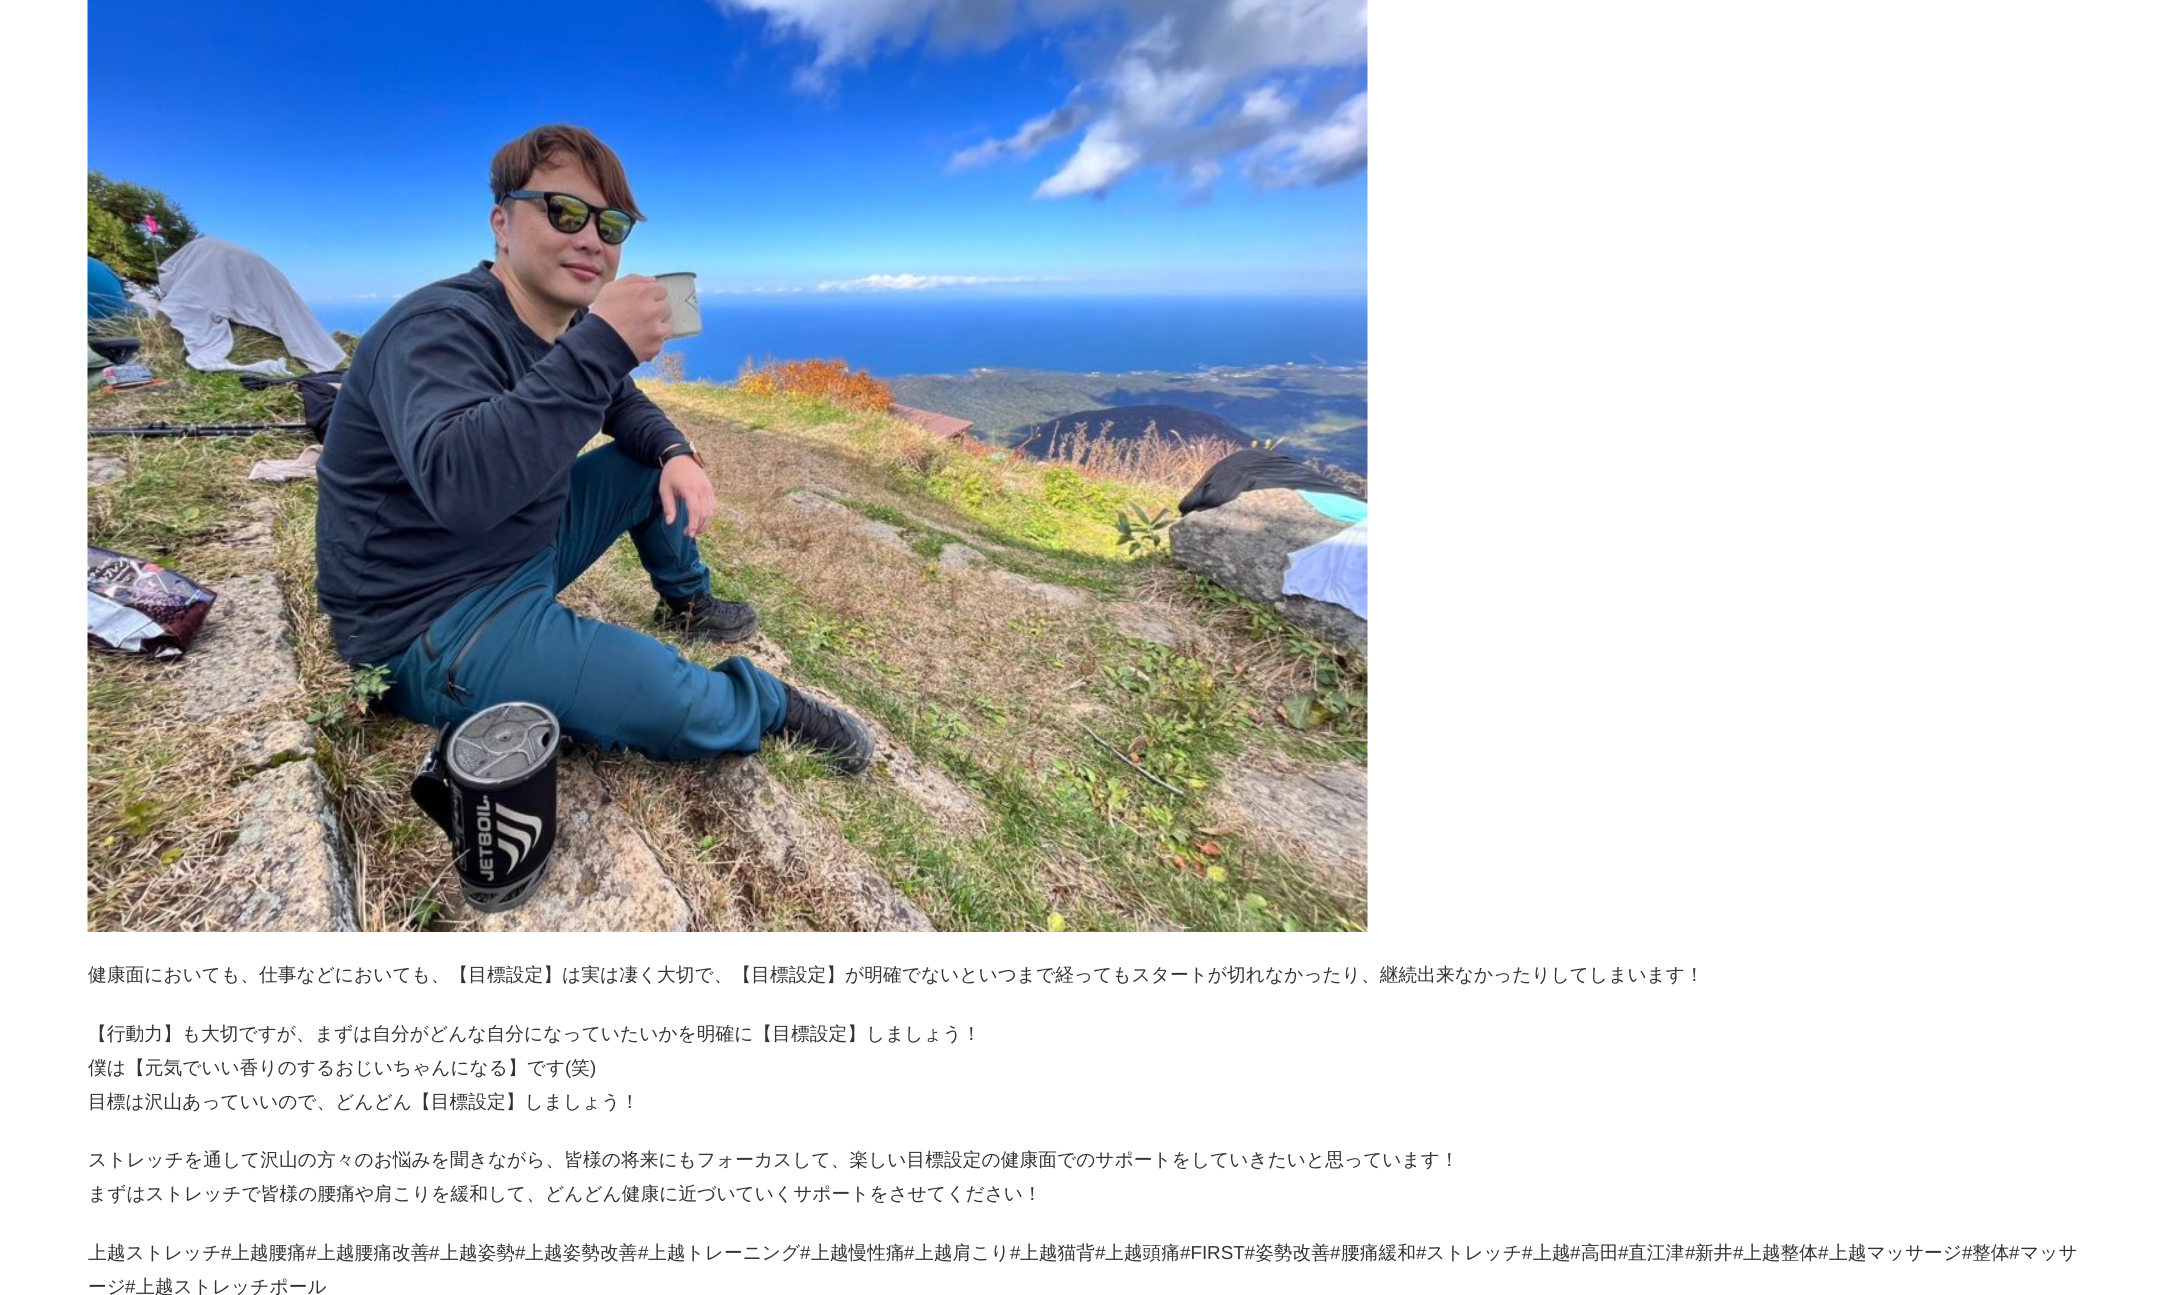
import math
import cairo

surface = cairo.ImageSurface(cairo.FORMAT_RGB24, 2166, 1295)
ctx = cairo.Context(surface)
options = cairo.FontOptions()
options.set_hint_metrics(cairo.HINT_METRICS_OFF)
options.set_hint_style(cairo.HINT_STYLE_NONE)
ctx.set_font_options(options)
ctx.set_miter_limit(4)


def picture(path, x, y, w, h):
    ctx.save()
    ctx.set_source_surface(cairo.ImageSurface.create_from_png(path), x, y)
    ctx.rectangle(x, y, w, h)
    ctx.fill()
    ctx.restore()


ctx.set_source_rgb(1, 1, 1)
ctx.paint()
picture("img1.png", 87, 0, 1281, 932)
ctx.select_font_face("WenQuanYi Zen Hei Medium")
ctx.set_font_size(18.75)
ctx.set_source_rgb(0.2, 0.2, 0.2)
ctx.move_to(88, 981)
ctx.show_text("健康面においても、仕事などにおいても、【目標設定】は実は凄く大切で、【目標設定】が明確でないといつまで経ってもスタートが切れなかったり、継続出来なかったりしてしまいます！")
ctx.move_to(88, 1040)
ctx.show_text("【行動力】も大切ですが、まずは自分がどんな自分になっていたいかを明確に【目標設定】しましょう！")
ctx.move_to(88, 1074)
ctx.show_text("僕は【元気でいい香りのするおじいちゃんになる】です")
ctx.select_font_face("Liberation Sans")
ctx.move_to(565, 1074)
ctx.show_text("(")
ctx.select_font_face("WenQuanYi Zen Hei Medium")
ctx.move_to(571, 1074)
ctx.show_text("笑")
ctx.select_font_face("Liberation Sans")
ctx.move_to(590, 1074)
ctx.show_text(")")
ctx.select_font_face("WenQuanYi Zen Hei Medium")
ctx.move_to(88, 1108)
ctx.show_text("目標は沢山あっていいので、どんどん【目標設定】しましょう！")
ctx.move_to(88, 1166)
ctx.show_text("ストレッチを通して沢山の方々のお悩みを聞きながら、皆様の将来にもフォーカスして、楽しい目標設定の健康面でのサポートをしていきたいと思っています！")
ctx.move_to(88, 1200)
ctx.show_text("まずはストレッチで皆様の腰痛や肩こりを緩和して、どんどん健康に近づいていくサポートをさせてください！")
ctx.move_to(88, 1259)
ctx.show_text("上越ストレッチ")
ctx.select_font_face("Liberation Sans")
ctx.move_to(221, 1259)
ctx.show_text("#")
ctx.select_font_face("WenQuanYi Zen Hei Medium")
ctx.move_to(231, 1259)
ctx.show_text("上越腰痛")
ctx.select_font_face("Liberation Sans")
ctx.move_to(306, 1259)
ctx.show_text("#")
ctx.select_font_face("WenQuanYi Zen Hei Medium")
ctx.move_to(317, 1259)
ctx.show_text("上越腰痛改善")
ctx.select_font_face("Liberation Sans")
ctx.move_to(429, 1259)
ctx.show_text("#")
ctx.select_font_face("WenQuanYi Zen Hei Medium")
ctx.move_to(440, 1259)
ctx.show_text("上越姿勢")
ctx.select_font_face("Liberation Sans")
ctx.move_to(515, 1259)
ctx.show_text("#")
ctx.select_font_face("WenQuanYi Zen Hei Medium")
ctx.move_to(525, 1259)
ctx.show_text("上越姿勢改善")
ctx.select_font_face("Liberation Sans")
ctx.move_to(638, 1259)
ctx.show_text("#")
ctx.select_font_face("WenQuanYi Zen Hei Medium")
ctx.move_to(648, 1259)
ctx.show_text("上越トレーニング")
ctx.select_font_face("Liberation Sans")
ctx.move_to(800, 1259)
ctx.show_text("#")
ctx.select_font_face("WenQuanYi Zen Hei Medium")
ctx.move_to(811, 1259)
ctx.show_text("上越慢性痛")
ctx.select_font_face("Liberation Sans")
ctx.move_to(904, 1259)
ctx.show_text("#")
ctx.select_font_face("WenQuanYi Zen Hei Medium")
ctx.move_to(915, 1259)
ctx.show_text("上越肩こり")
ctx.select_font_face("Liberation Sans")
ctx.move_to(1010, 1259)
ctx.show_text("#")
ctx.select_font_face("WenQuanYi Zen Hei Medium")
ctx.move_to(1020, 1259)
ctx.show_text("上越猫背")
ctx.select_font_face("Liberation Sans")
ctx.move_to(1095, 1259)
ctx.show_text("#")
ctx.select_font_face("WenQuanYi Zen Hei Medium")
ctx.move_to(1105, 1259)
ctx.show_text("上越頭痛")
ctx.select_font_face("Liberation Sans")
ctx.move_to(1180, 1259)
ctx.show_text("#FIRST#")
ctx.select_font_face("WenQuanYi Zen Hei Medium")
ctx.move_to(1255, 1259)
ctx.show_text("姿勢改善")
ctx.select_font_face("Liberation Sans")
ctx.move_to(1330, 1259)
ctx.show_text("#")
ctx.select_font_face("WenQuanYi Zen Hei Medium")
ctx.move_to(1341, 1259)
ctx.show_text("腰痛緩和")
ctx.select_font_face("Liberation Sans")
ctx.move_to(1416, 1259)
ctx.show_text("#")
ctx.select_font_face("WenQuanYi Zen Hei Medium")
ctx.move_to(1426, 1259)
ctx.show_text("ストレッチ")
ctx.select_font_face("Liberation Sans")
ctx.move_to(1522, 1259)
ctx.show_text("#")
ctx.select_font_face("WenQuanYi Zen Hei Medium")
ctx.move_to(1533, 1259)
ctx.show_text("上越")
ctx.select_font_face("Liberation Sans")
ctx.move_to(1570, 1259)
ctx.show_text("#")
ctx.select_font_face("WenQuanYi Zen Hei Medium")
ctx.move_to(1581, 1259)
ctx.show_text("高田")
ctx.select_font_face("Liberation Sans")
ctx.move_to(1618, 1259)
ctx.show_text("#")
ctx.select_font_face("WenQuanYi Zen Hei Medium")
ctx.move_to(1628, 1259)
ctx.show_text("直江津")
ctx.select_font_face("Liberation Sans")
ctx.move_to(1685, 1259)
ctx.show_text("#")
ctx.select_font_face("WenQuanYi Zen Hei Medium")
ctx.move_to(1695, 1259)
ctx.show_text("新井")
ctx.select_font_face("Liberation Sans")
ctx.move_to(1733, 1259)
ctx.show_text("#")
ctx.select_font_face("WenQuanYi Zen Hei Medium")
ctx.move_to(1743, 1259)
ctx.show_text("上越整体")
ctx.select_font_face("Liberation Sans")
ctx.move_to(1818, 1259)
ctx.show_text("#")
ctx.select_font_face("WenQuanYi Zen Hei Medium")
ctx.move_to(1829, 1259)
ctx.show_text("上越マッサージ")
ctx.select_font_face("Liberation Sans")
ctx.move_to(1962, 1259)
ctx.show_text("#")
ctx.select_font_face("WenQuanYi Zen Hei Medium")
ctx.move_to(1972, 1259)
ctx.show_text("整体")
ctx.select_font_face("Liberation Sans")
ctx.move_to(2009, 1259)
ctx.show_text("#")
ctx.select_font_face("WenQuanYi Zen Hei Medium")
ctx.move_to(2020, 1259)
ctx.show_text("マッサ")
ctx.move_to(88, 1293)
ctx.show_text("ージ")
ctx.select_font_face("Liberation Sans")
ctx.move_to(125, 1293)
ctx.show_text("#")
ctx.select_font_face("WenQuanYi Zen Hei Medium")
ctx.move_to(136, 1293)
ctx.show_text("上越ストレッチポール")
surface.write_to_png("page.png")
